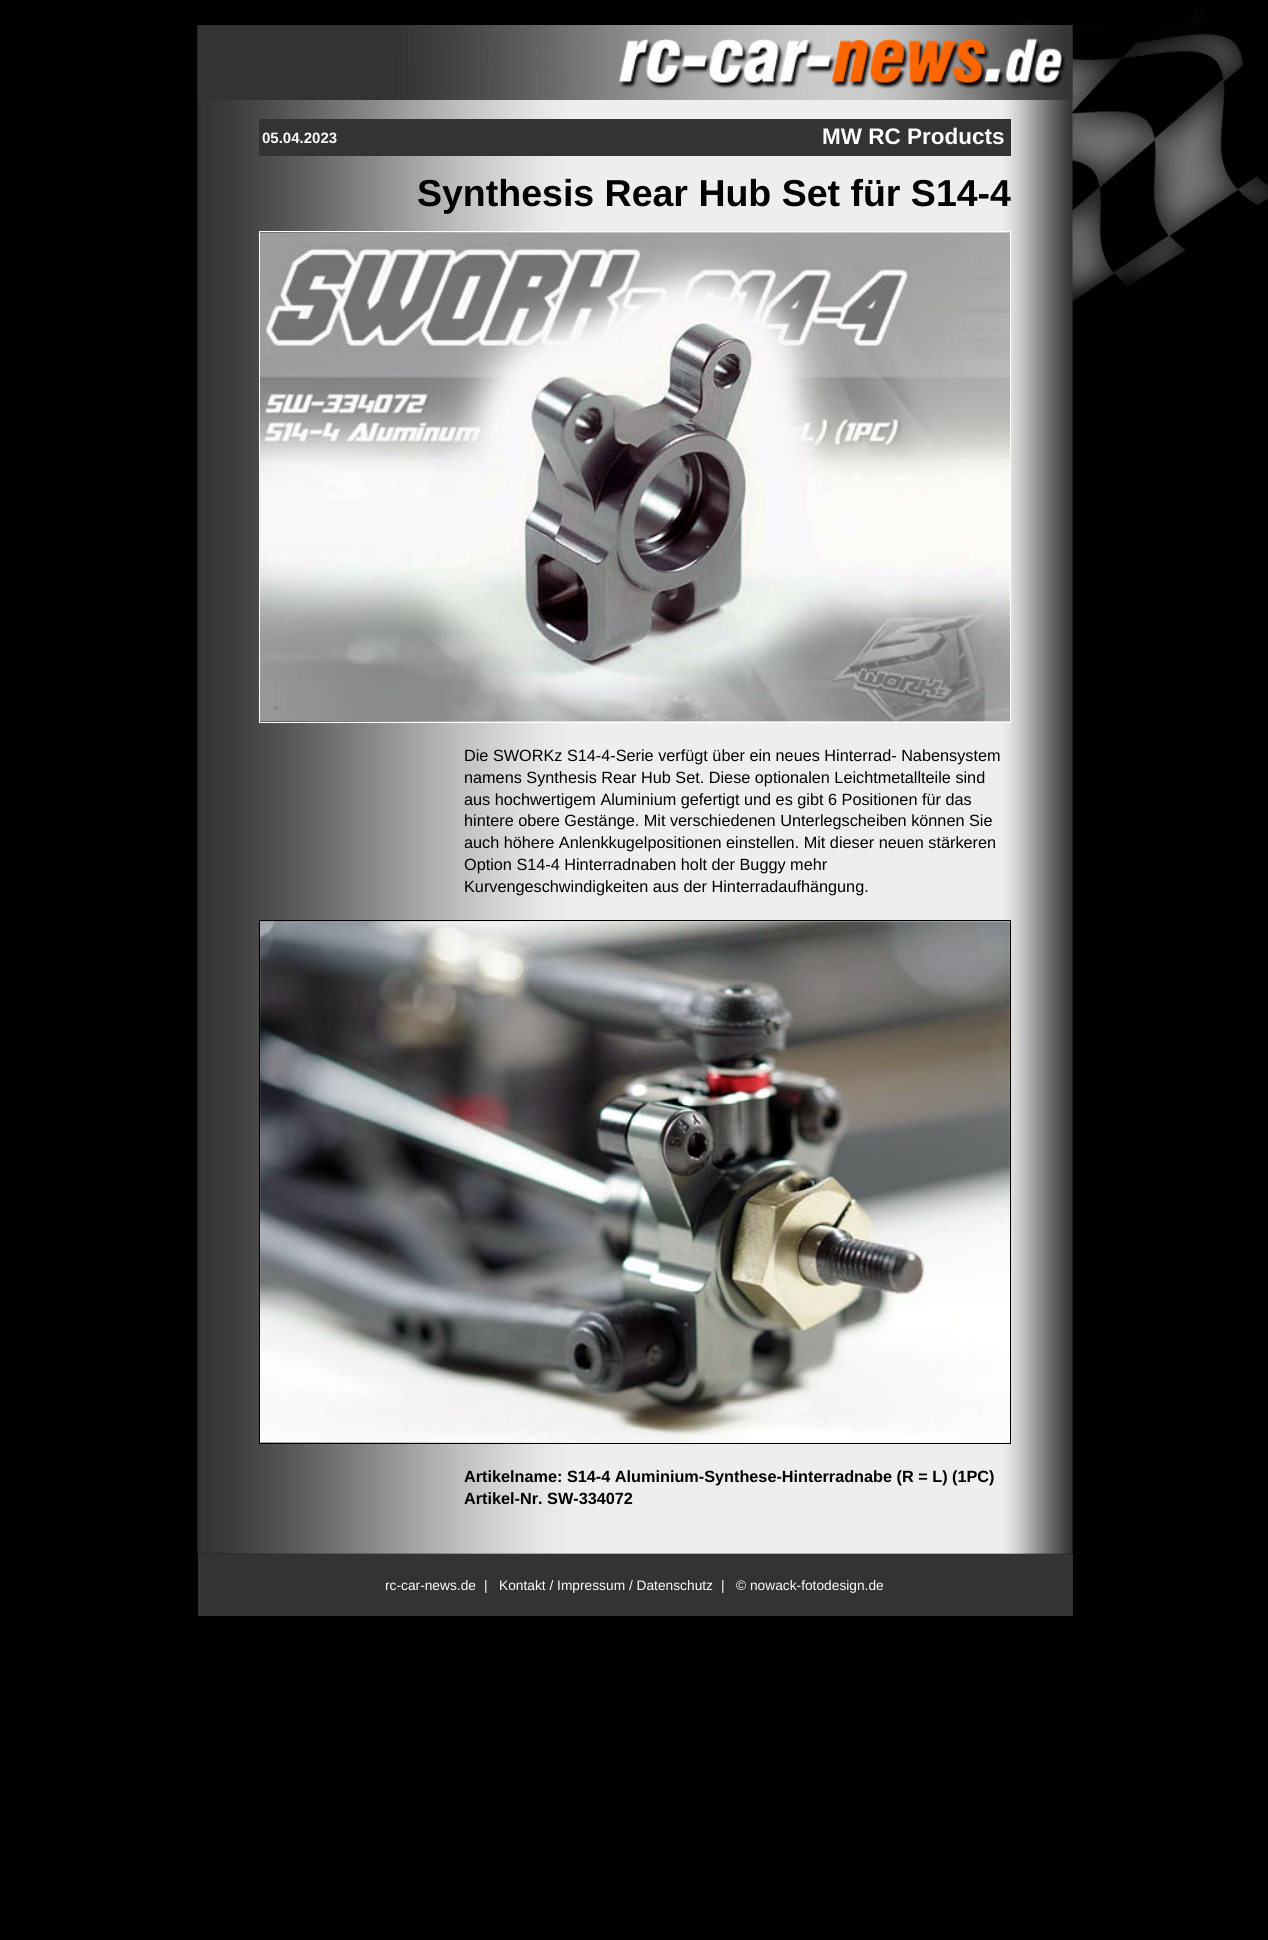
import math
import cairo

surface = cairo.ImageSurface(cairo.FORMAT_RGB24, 1268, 1940)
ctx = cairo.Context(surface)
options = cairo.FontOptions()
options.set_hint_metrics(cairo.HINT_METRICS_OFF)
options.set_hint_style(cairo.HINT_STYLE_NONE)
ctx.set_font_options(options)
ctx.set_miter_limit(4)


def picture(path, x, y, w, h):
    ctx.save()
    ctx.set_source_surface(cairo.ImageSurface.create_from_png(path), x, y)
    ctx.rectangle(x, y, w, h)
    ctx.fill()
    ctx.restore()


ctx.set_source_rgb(0, 0, 0)
ctx.paint()
picture("img1.png", 883, 6, 385, 325)
picture("img2.png", 197, 25, 876, 1529)
picture("img3.png", 197, 25, 876, 75)
ctx.set_source_rgb(0.2, 0.2, 0.2)
ctx.rectangle(259, 119, 752, 37)
ctx.fill()
ctx.select_font_face("Liberation Sans", cairo.FONT_SLANT_NORMAL, cairo.FONT_WEIGHT_BOLD)
ctx.set_font_size(15)
ctx.set_source_rgb(1, 1, 1)
ctx.move_to(262, 143)
ctx.show_text("05.04.2023")
ctx.set_font_size(22.5)
ctx.move_to(822, 144)
ctx.show_text("MW RC Products")
ctx.set_font_size(37.5)
ctx.set_source_rgb(0, 0, 0)
ctx.move_to(417, 206)
ctx.show_text("Synthesis Rear Hub Set für S14-4")
ctx.rectangle(259.5, 231.5, 751, 491)
ctx.set_source_rgb(1, 1, 1)
ctx.set_line_width(1)
ctx.stroke()
picture("img4.png", 260, 232, 750, 490)
ctx.select_font_face("Liberation Sans")
ctx.set_font_size(16.25)
ctx.set_source_rgb(0, 0, 0)
ctx.move_to(464, 761)
ctx.show_text("Die SWORKz S14-4-Serie verfügt über ein neues Hinterrad- Nabensystem")
ctx.move_to(464, 783)
ctx.show_text("namens Synthesis Rear Hub Set. Diese optionalen Leichtmetallteile sind")
ctx.move_to(464, 805)
ctx.show_text("aus hochwertigem Aluminium gefertigt und es gibt 6 Positionen für das")
ctx.move_to(464, 826)
ctx.show_text("hintere obere Gestänge. Mit verschiedenen Unterlegscheiben können Sie")
ctx.move_to(464, 848)
ctx.show_text("auch höhere Anlenkkugelpositionen einstellen. Mit dieser neuen stärkeren")
ctx.move_to(464, 870)
ctx.show_text("Option S14-4 Hinterradnaben holt der Buggy mehr")
ctx.move_to(464, 892)
ctx.show_text("Kurvengeschwindigkeiten aus der Hinterradaufhängung.")
ctx.rectangle(259.5, 920.5, 751, 523)
ctx.stroke()
picture("img5.png", 260, 921, 750, 522)
ctx.select_font_face("Liberation Sans", cairo.FONT_SLANT_NORMAL, cairo.FONT_WEIGHT_BOLD)
ctx.move_to(464, 1482)
ctx.show_text("Artikelname: S14-4 Aluminium-Synthese-Hinterradnabe (R = L) (1PC)")
ctx.move_to(464, 1504)
ctx.show_text("Artikel-Nr. SW-334072")
ctx.set_source_rgb(0.2, 0.2, 0.2)
ctx.rectangle(198, 1554, 875, 62)
ctx.fill()
ctx.select_font_face("Liberation Sans")
ctx.set_font_size(13.75)
ctx.set_source_rgb(1, 1, 1)
ctx.move_to(385, 1590)
ctx.show_text("rc-car-news.de")
ctx.move_to(484, 1590)
ctx.show_text("|")
ctx.move_to(499, 1590)
ctx.show_text("Kontakt / Impressum / Datenschutz")
ctx.move_to(721, 1590)
ctx.show_text("|")
ctx.move_to(736, 1590)
ctx.show_text("© nowack-fotodesign.de")
surface.write_to_png("page.png")
